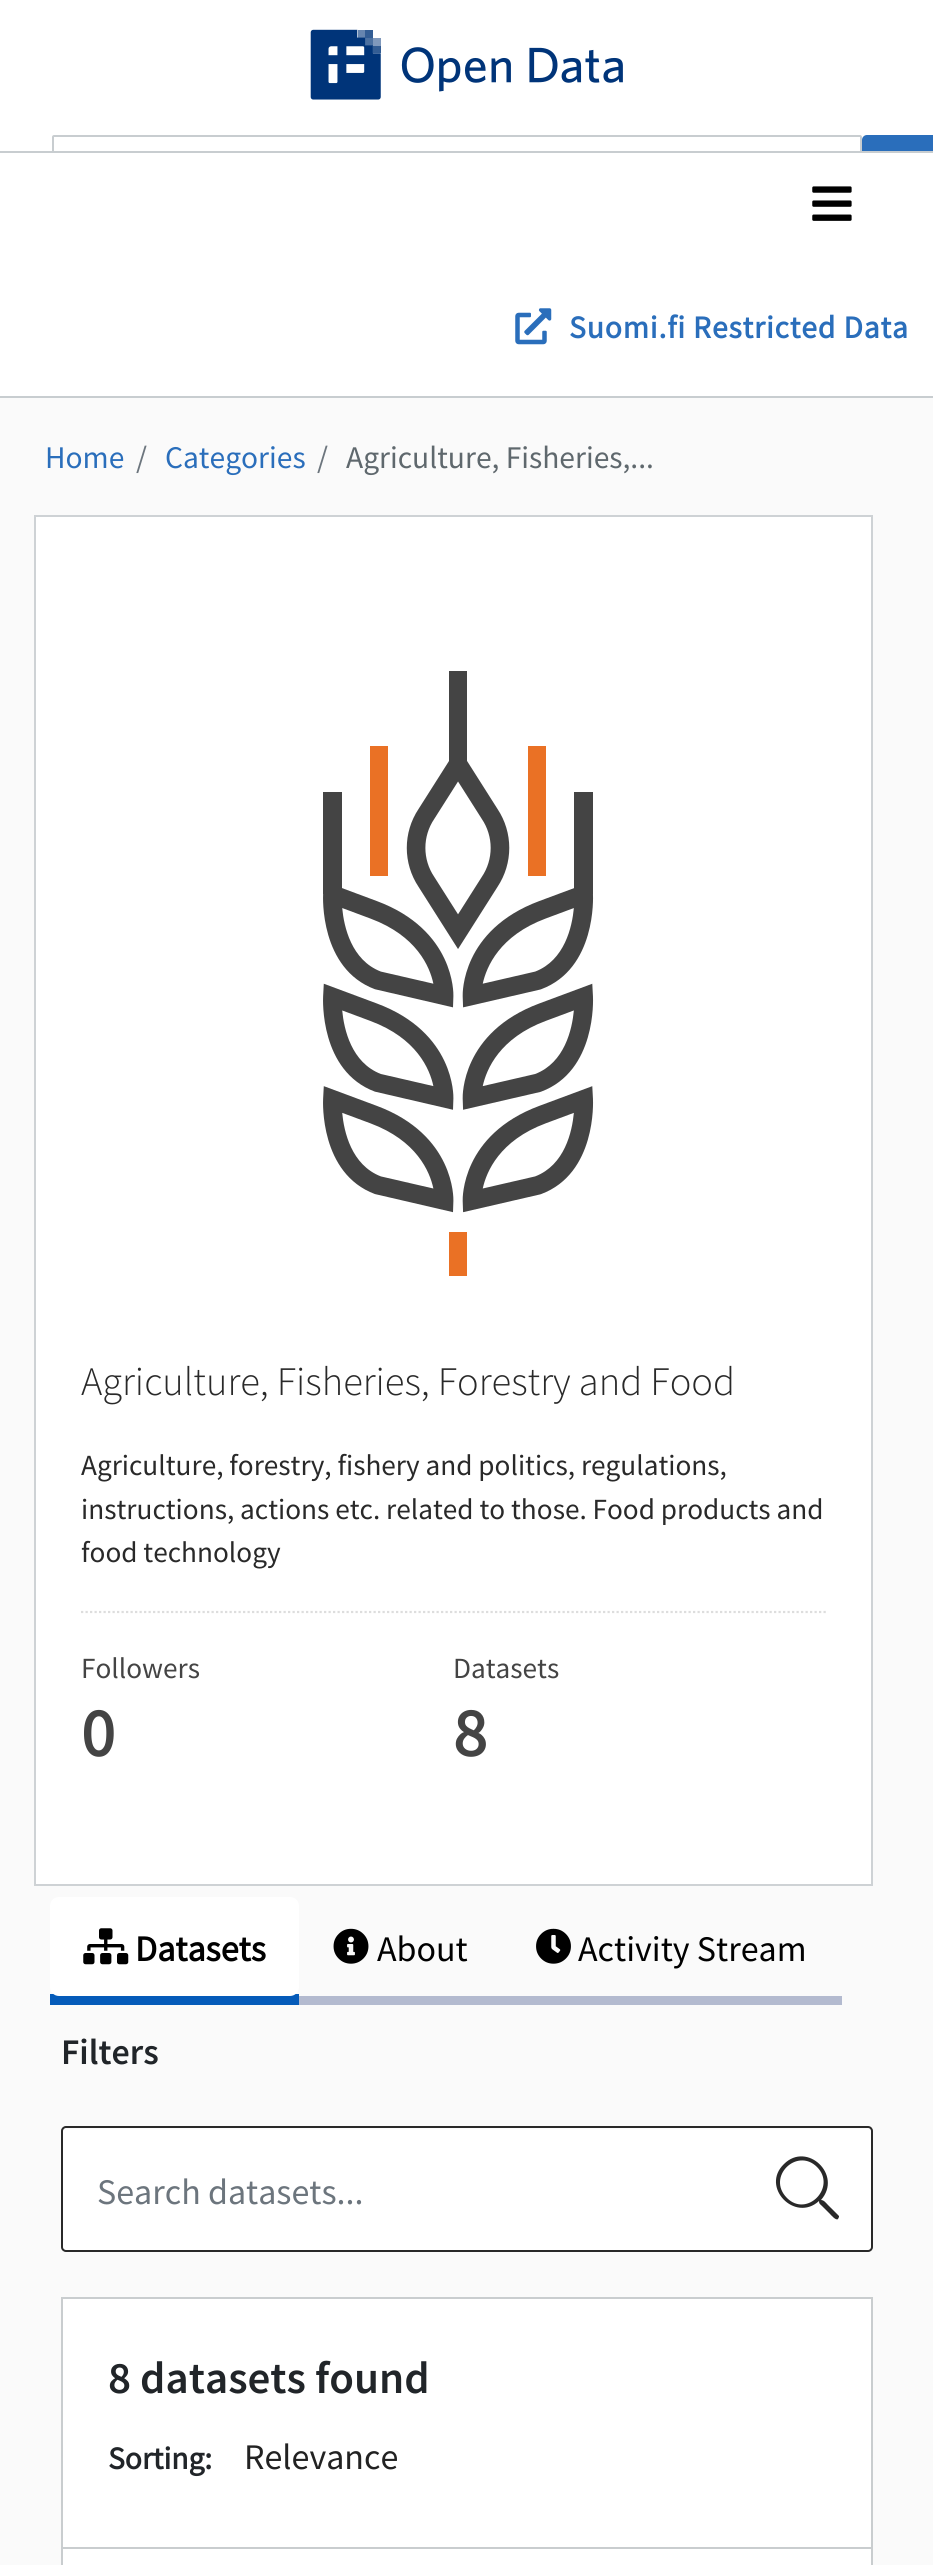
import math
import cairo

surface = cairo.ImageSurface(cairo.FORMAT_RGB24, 933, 2565)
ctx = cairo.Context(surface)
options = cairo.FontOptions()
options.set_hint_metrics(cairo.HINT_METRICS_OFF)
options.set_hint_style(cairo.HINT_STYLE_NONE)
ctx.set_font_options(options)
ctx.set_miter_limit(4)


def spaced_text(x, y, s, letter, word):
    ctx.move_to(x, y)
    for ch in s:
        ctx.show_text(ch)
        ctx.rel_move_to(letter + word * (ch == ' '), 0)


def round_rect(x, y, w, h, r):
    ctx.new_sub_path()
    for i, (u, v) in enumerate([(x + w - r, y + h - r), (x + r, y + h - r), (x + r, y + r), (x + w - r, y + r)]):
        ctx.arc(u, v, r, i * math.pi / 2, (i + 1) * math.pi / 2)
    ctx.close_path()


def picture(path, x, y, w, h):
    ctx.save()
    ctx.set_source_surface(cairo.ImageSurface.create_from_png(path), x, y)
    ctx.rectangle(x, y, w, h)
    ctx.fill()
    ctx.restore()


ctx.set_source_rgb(0.98, 0.98, 0.98)
ctx.paint()
ctx.set_source_rgb(1, 1, 1)
ctx.rectangle(0, 0, 933, 151)
ctx.fill()
picture("img1.png", 310, 29, 313, 71)
round_rect(53, 136, 808, 88, 1)
ctx.fill_preserve()
ctx.set_source_rgb(0.784, 0.804, 0.816)
ctx.stroke()
ctx.set_source_rgb(0.165, 0.431, 0.733)
round_rect(862, 135, 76, 90, 5)
ctx.fill()
ctx.set_source_rgb(1, 1, 1)
ctx.rectangle(0, 153, 933, 243)
ctx.fill()
ctx.set_source_rgb(0.784, 0.804, 0.816)
ctx.rectangle(0, 151, 933, 2)
ctx.fill()
ctx.rectangle(0, 396, 933, 2)
ctx.fill()
picture("img2.png", 812, 186, 40, 35)
picture("img3.png", 515, 308, 37, 37)
ctx.select_font_face("Source Sans Pro", cairo.FONT_SLANT_NORMAL, cairo.FONT_WEIGHT_BOLD)
ctx.set_font_size(31.5)
ctx.set_source_rgb(0.165, 0.431, 0.733)
spaced_text(569, 338, "Suomi.fi Restricted Data", 0.9, 0)
ctx.select_font_face("Source Sans Pro")
ctx.move_to(45, 468)
ctx.show_text("Home")
ctx.set_source_rgb(0.424, 0.459, 0.49)
ctx.move_to(136, 468)
ctx.show_text("/")
ctx.set_source_rgb(0.165, 0.431, 0.733)
ctx.move_to(165, 468)
ctx.show_text("Categories")
ctx.set_source_rgb(0.424, 0.459, 0.49)
ctx.move_to(317, 468)
ctx.show_text("/")
ctx.set_source_rgb(0.373, 0.408, 0.427)
ctx.move_to(346, 468)
ctx.show_text("Agriculture, Fisheries,...")
ctx.set_source_rgb(1, 1, 1)
ctx.rectangle(35, 516, 837, 1369)
ctx.fill_preserve()
ctx.set_source_rgb(0.808, 0.824, 0.835)
ctx.stroke()
picture("img4.png", 323, 671, 271, 605)
ctx.select_font_face("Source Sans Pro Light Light")
ctx.set_font_size(40.5)
ctx.set_source_rgb(0.161, 0.161, 0.161)
ctx.move_to(81, 1395)
ctx.show_text("Agriculture, Fisheries, Forestry and Food")
ctx.select_font_face("Source Sans Pro")
ctx.set_font_size(29.25)
ctx.move_to(81, 1475)
ctx.show_text("Agriculture, forestry, fishery and politics, regulations,")
ctx.move_to(81, 1519)
ctx.show_text("instructions, actions etc. related to those. Food products and")
ctx.move_to(81, 1562)
ctx.show_text("food technology")
ctx.new_path()
ctx.move_to(81, 1612)
ctx.line_to(826, 1612)
ctx.set_source_rgb(0.867, 0.867, 0.867)
ctx.set_line_width(2.2)
ctx.set_dash([2.25, 2.25])
ctx.stroke()
ctx.set_source_rgb(0.267, 0.267, 0.267)
ctx.move_to(81, 1678)
ctx.show_text("Followers")
ctx.select_font_face("Source Sans Pro", cairo.FONT_SLANT_NORMAL, cairo.FONT_WEIGHT_BOLD)
ctx.set_font_size(68)
ctx.move_to(81, 1756)
ctx.show_text("0")
ctx.select_font_face("Source Sans Pro")
ctx.set_font_size(29.25)
ctx.move_to(453, 1678)
ctx.show_text("Datasets")
ctx.select_font_face("Source Sans Pro", cairo.FONT_SLANT_NORMAL, cairo.FONT_WEIGHT_BOLD)
ctx.set_font_size(68)
ctx.move_to(453, 1756)
ctx.show_text("8")
ctx.set_source_rgb(0.02, 0.357, 0.725)
ctx.rectangle(50, 1994, 249, 11)
ctx.fill()
ctx.set_source_rgb(1, 1, 1)
round_rect(50, 1897, 249, 99, 9)
ctx.fill()
picture("img5.png", 83, 1928, 46, 37)
ctx.set_font_size(36)
ctx.set_source_rgb(0, 0, 0)
ctx.move_to(135, 1961)
ctx.show_text("Datasets")
ctx.set_source_rgb(0.702, 0.729, 0.812)
ctx.rectangle(299, 1996, 543, 9)
ctx.fill()
picture("img6.png", 333, 1928, 36, 36)
ctx.select_font_face("Source Sans Pro")
ctx.set_source_rgb(0, 0, 0)
ctx.move_to(377, 1961)
ctx.show_text("About")
picture("img7.png", 536, 1928, 35, 36)
ctx.move_to(578, 1961)
ctx.show_text("Activity Stream")
ctx.select_font_face("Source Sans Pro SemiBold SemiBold")
ctx.set_source_rgb(0.129, 0.145, 0.161)
ctx.move_to(61, 2064)
ctx.show_text("Filters")
ctx.set_source_rgb(1, 1, 1)
round_rect(63, 2129, 808, 121, 2)
ctx.fill()
round_rect(62, 2127, 810, 124, 4)
ctx.set_source_rgb(0.161, 0.161, 0.161)
ctx.set_line_width(2)
ctx.set_dash([])
ctx.stroke()
ctx.select_font_face("Source Sans Pro")
ctx.set_source_rgb(0.424, 0.459, 0.49)
ctx.move_to(97, 2204)
ctx.show_text("Search datasets...")
ctx.set_source_rgb(0.161, 0.161, 0.161)
ctx.new_path()
ctx.move_to(839, 2216)
ctx.line_to(839, 2217)
ctx.line_to(838, 2219)
ctx.curve_to(836, 2221, 831, 2215, 830, 2214)
ctx.line_to(822, 2206)
ctx.curve_to(820, 2204, 819, 2204, 819, 2201)
ctx.curve_to(795, 2223, 760, 2187, 784, 2164)
ctx.curve_to(807, 2141, 843, 2175, 821, 2200)
ctx.curve_to(824, 2200, 826, 2203, 828, 2205)
ctx.close_path()
ctx.move_to(787, 2198)
ctx.curve_to(807, 2218, 837, 2187, 817, 2167)
ctx.curve_to(797, 2147, 766, 2177, 787, 2198)
ctx.close_path()
ctx.fill()
ctx.set_source_rgb(1, 1, 1)
ctx.rectangle(62, 2298, 810, 250)
ctx.fill_preserve()
ctx.set_source_rgb(0.788, 0.804, 0.812)
ctx.stroke()
ctx.select_font_face("Source Sans Pro SemiBold SemiBold")
ctx.set_font_size(45)
ctx.set_source_rgb(0.129, 0.145, 0.161)
ctx.move_to(108, 2393)
ctx.show_text("8 datasets found")
ctx.select_font_face("Source Sans Pro", cairo.FONT_SLANT_NORMAL, cairo.FONT_WEIGHT_BOLD)
ctx.set_font_size(31.5)
ctx.move_to(108, 2469)
ctx.show_text("Sorting:")
ctx.select_font_face("Source Sans Pro")
ctx.set_font_size(36)
ctx.set_source_rgb(0.133, 0.133, 0.133)
ctx.move_to(244, 2469)
ctx.show_text("Relevance")
ctx.set_source_rgb(1, 1, 1)
ctx.rectangle(63, 2549, 808, 16)
ctx.fill()
ctx.set_source_rgb(0.788, 0.804, 0.812)
ctx.rectangle(871, 2547, 2, 18)
ctx.fill()
ctx.rectangle(61, 2547, 2, 18)
ctx.fill()
surface.write_to_png("page.png")
